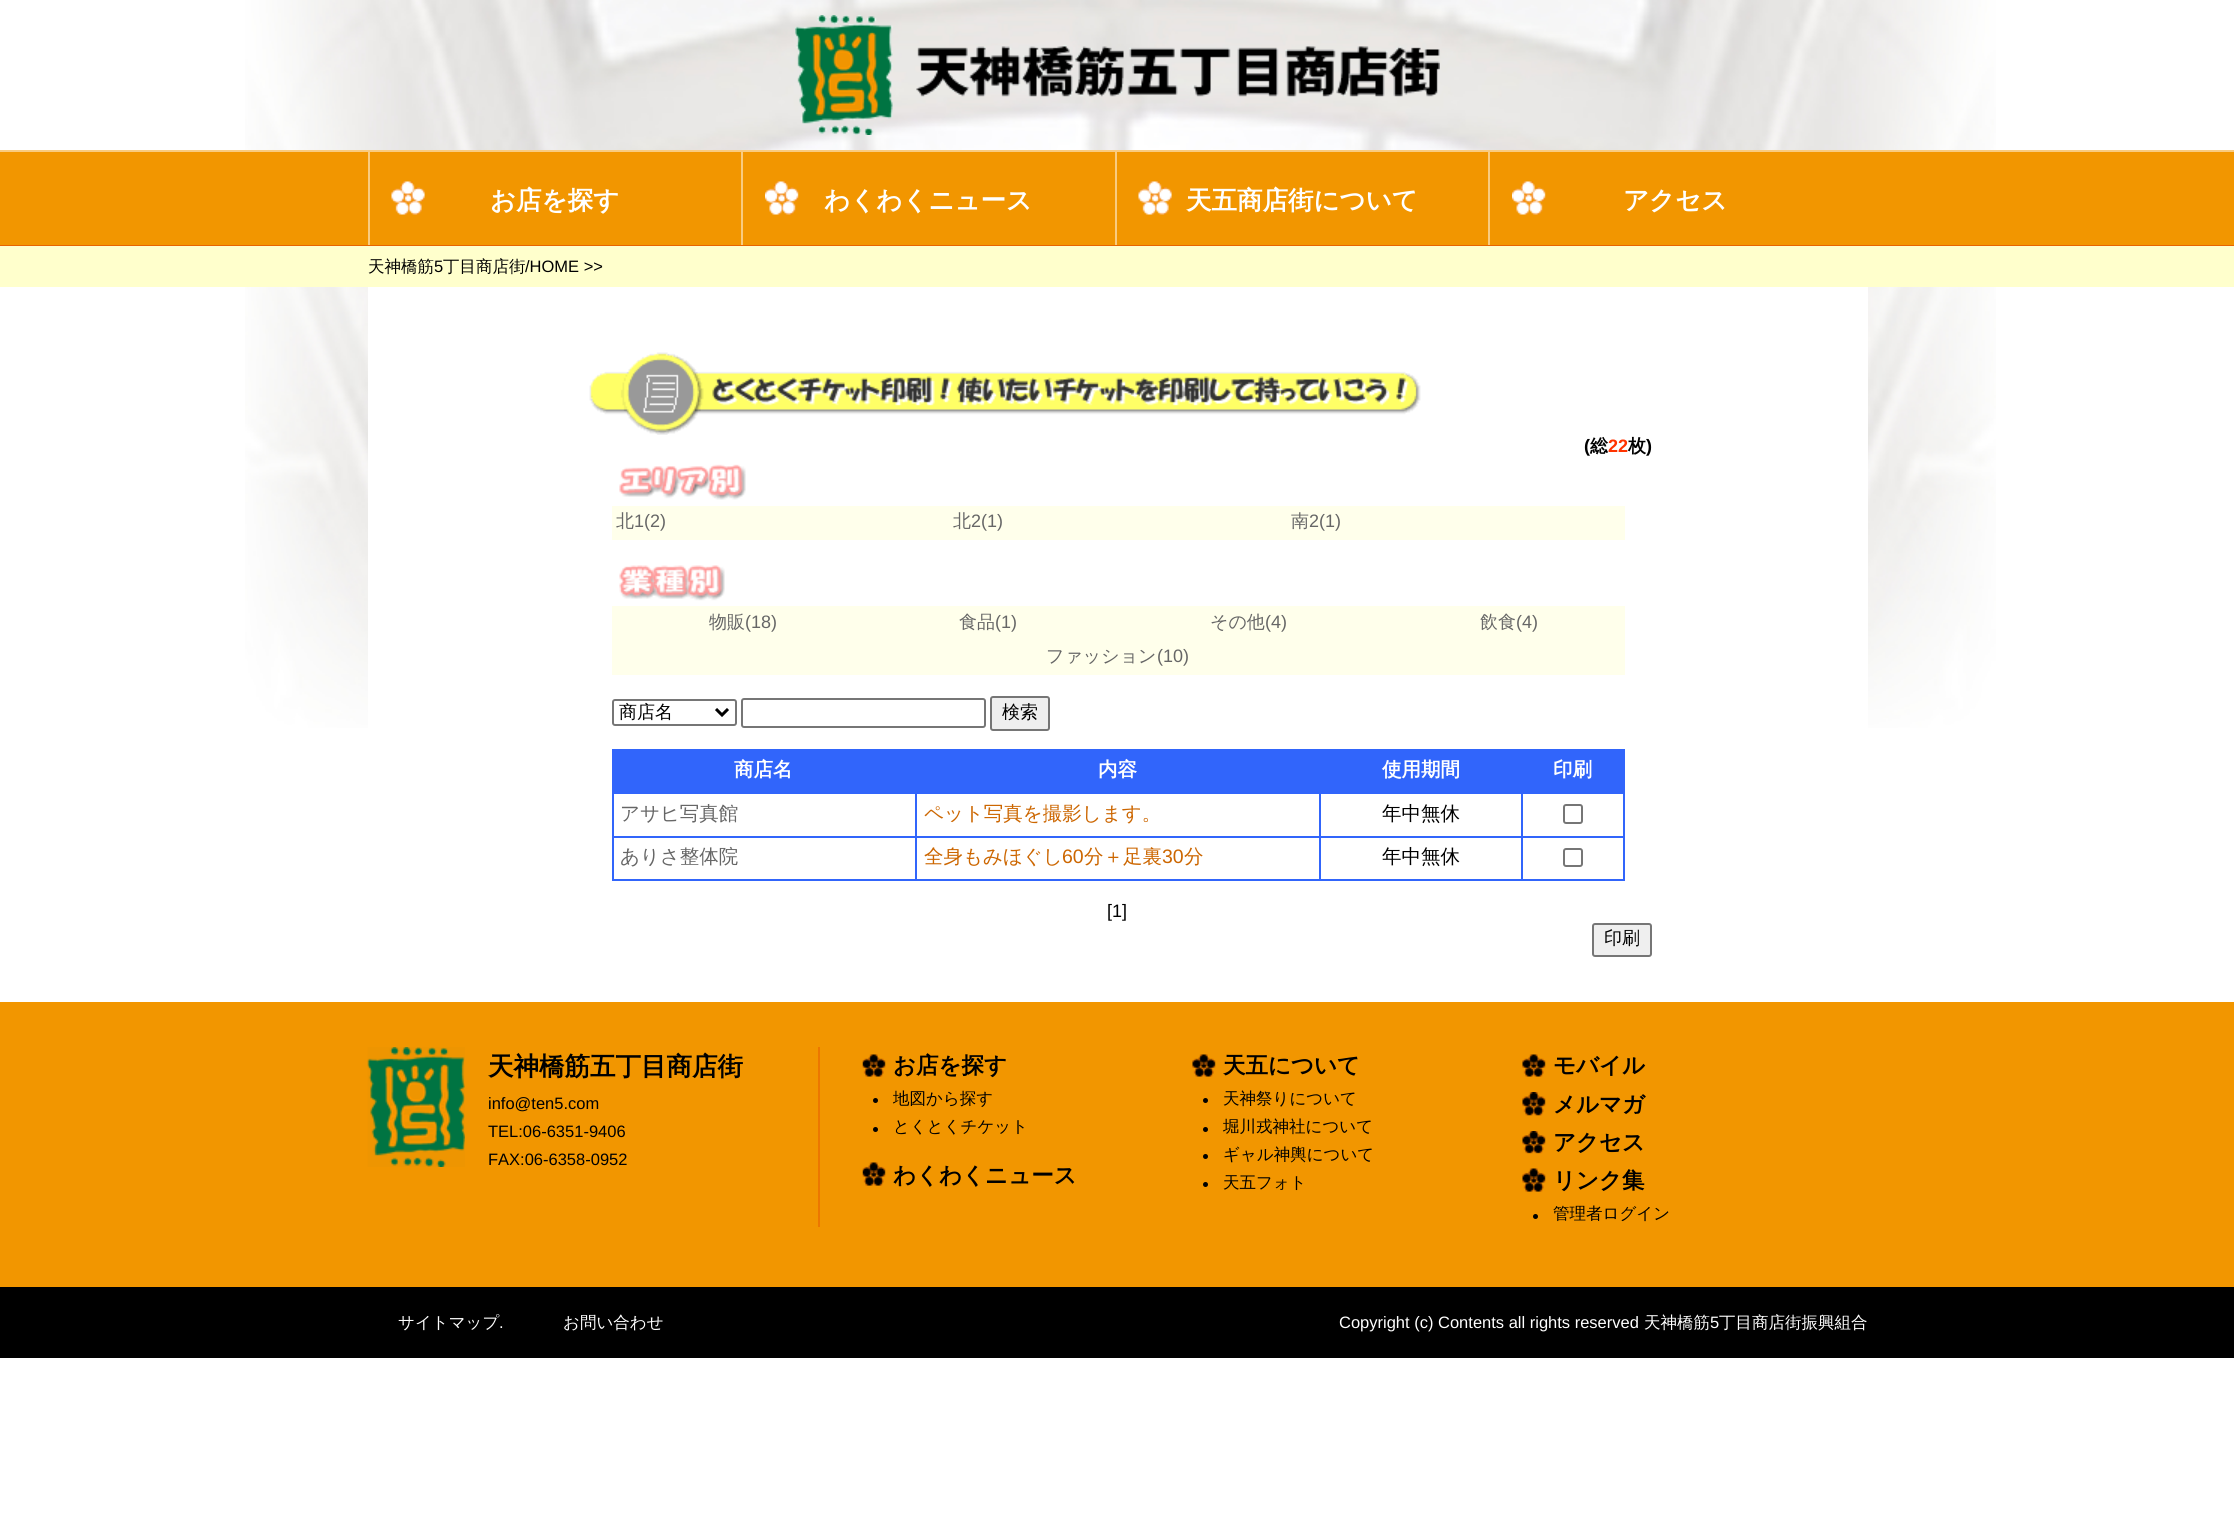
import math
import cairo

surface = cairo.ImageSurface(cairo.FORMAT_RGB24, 2234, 1525)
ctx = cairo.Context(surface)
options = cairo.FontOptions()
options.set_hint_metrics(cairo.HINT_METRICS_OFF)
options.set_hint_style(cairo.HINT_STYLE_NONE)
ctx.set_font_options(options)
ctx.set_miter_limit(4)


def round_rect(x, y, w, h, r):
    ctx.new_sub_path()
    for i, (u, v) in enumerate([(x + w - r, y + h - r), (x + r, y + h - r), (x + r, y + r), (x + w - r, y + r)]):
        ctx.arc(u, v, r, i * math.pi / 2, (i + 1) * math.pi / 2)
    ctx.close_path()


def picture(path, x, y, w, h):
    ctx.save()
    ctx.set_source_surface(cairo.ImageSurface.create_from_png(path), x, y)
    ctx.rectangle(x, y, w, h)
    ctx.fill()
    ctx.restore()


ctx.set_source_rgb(1, 1, 1)
ctx.paint()
picture("img1.png", 245, 0, 1751, 728)
picture("img2.png", 795, 15, 645, 120)
ctx.set_source_rgb(0.949, 0.588, 0)
ctx.rectangle(0, 152, 2234, 93)
ctx.fill()
ctx.set_source_rgb(0.976, 0.796, 0.502)
ctx.rectangle(0, 150, 2234, 2)
ctx.fill()
ctx.set_source_rgb(0.91, 0.392, 0)
ctx.rectangle(0, 245, 2234, 1)
ctx.fill()
picture("img3.png", 391, 181, 34, 34)
ctx.set_source_rgb(0.976, 0.796, 0.502)
ctx.rectangle(368, 152, 2, 93)
ctx.fill()
ctx.select_font_face("WenQuanYi Zen Hei", cairo.FONT_SLANT_NORMAL, cairo.FONT_WEIGHT_BOLD)
ctx.set_font_size(25.5)
ctx.set_source_rgb(1, 1, 1)
ctx.move_to(490, 209)
ctx.show_text("お店を探す")
picture("img4.png", 765, 181, 34, 34)
ctx.set_source_rgb(0.976, 0.796, 0.502)
ctx.rectangle(741, 152, 2, 93)
ctx.fill()
ctx.set_source_rgb(1, 1, 1)
ctx.move_to(824, 209)
ctx.show_text("わくわくニュース")
picture("img3.png", 1138, 181, 34, 34)
ctx.set_source_rgb(0.976, 0.796, 0.502)
ctx.rectangle(1115, 152, 2, 93)
ctx.fill()
ctx.set_source_rgb(1, 1, 1)
ctx.move_to(1186, 209)
ctx.show_text("天五商店街について")
picture("img5.png", 1512, 181, 34, 34)
ctx.set_source_rgb(0.976, 0.796, 0.502)
ctx.rectangle(1488, 152, 2, 93)
ctx.fill()
ctx.set_source_rgb(1, 1, 1)
ctx.move_to(1623, 209)
ctx.show_text("アクセス")
ctx.set_source_rgb(1, 1, 0.8)
ctx.rectangle(0, 246, 2234, 41)
ctx.fill()
ctx.select_font_face("WenQuanYi Zen Hei Medium")
ctx.set_font_size(16.5)
ctx.set_source_rgb(0, 0, 0)
ctx.move_to(368, 272)
ctx.show_text("天神橋筋")
ctx.select_font_face("Liberation Sans")
ctx.move_to(434, 272)
ctx.show_text("5")
ctx.select_font_face("WenQuanYi Zen Hei Medium")
ctx.move_to(443, 272)
ctx.show_text("丁目商店街")
ctx.select_font_face("Liberation Sans")
ctx.move_to(525, 272)
ctx.show_text("/HOME >>")
ctx.set_source_rgb(1, 1, 1)
ctx.rectangle(368, 287, 1500, 441)
ctx.fill()
picture("img6.png", 589, 352, 832, 83)
ctx.select_font_face("Liberation Sans", cairo.FONT_SLANT_NORMAL, cairo.FONT_WEIGHT_BOLD)
ctx.set_font_size(18)
ctx.set_source_rgb(0, 0, 0)
ctx.move_to(1584, 452)
ctx.show_text("(")
ctx.select_font_face("WenQuanYi Zen Hei", cairo.FONT_SLANT_NORMAL, cairo.FONT_WEIGHT_BOLD)
ctx.move_to(1590, 452)
ctx.show_text("総")
ctx.select_font_face("Liberation Sans", cairo.FONT_SLANT_NORMAL, cairo.FONT_WEIGHT_BOLD)
ctx.set_source_rgb(1, 0.2, 0)
ctx.move_to(1608, 452)
ctx.show_text("22")
ctx.select_font_face("WenQuanYi Zen Hei", cairo.FONT_SLANT_NORMAL, cairo.FONT_WEIGHT_BOLD)
ctx.set_source_rgb(0, 0, 0)
ctx.move_to(1628, 452)
ctx.show_text("枚")
ctx.select_font_face("Liberation Sans", cairo.FONT_SLANT_NORMAL, cairo.FONT_WEIGHT_BOLD)
ctx.move_to(1646, 452)
ctx.show_text(")")
picture("img7.png", 619, 464, 127, 36)
ctx.set_source_rgb(1, 1, 0.918)
ctx.rectangle(612, 506, 1013, 34)
ctx.fill()
ctx.select_font_face("WenQuanYi Zen Hei Medium")
ctx.set_source_rgb(0.4, 0.4, 0.4)
ctx.move_to(616, 527)
ctx.show_text("北")
ctx.select_font_face("Liberation Sans")
ctx.move_to(634, 527)
ctx.show_text("1(2)")
ctx.select_font_face("WenQuanYi Zen Hei Medium")
ctx.move_to(953, 527)
ctx.show_text("北")
ctx.select_font_face("Liberation Sans")
ctx.move_to(971, 527)
ctx.show_text("2(1)")
ctx.select_font_face("WenQuanYi Zen Hei Medium")
ctx.move_to(1291, 527)
ctx.show_text("南")
ctx.select_font_face("Liberation Sans")
ctx.move_to(1309, 527)
ctx.show_text("2(1)")
picture("img8.png", 619, 565, 106, 36)
ctx.set_source_rgb(1, 1, 0.918)
ctx.rectangle(612, 606, 1013, 69)
ctx.fill()
ctx.select_font_face("WenQuanYi Zen Hei Medium")
ctx.set_source_rgb(0.4, 0.4, 0.4)
ctx.move_to(709, 628)
ctx.show_text("物販")
ctx.select_font_face("Liberation Sans")
ctx.move_to(745, 628)
ctx.show_text("(18)")
ctx.select_font_face("WenQuanYi Zen Hei Medium")
ctx.move_to(959, 628)
ctx.show_text("食品")
ctx.select_font_face("Liberation Sans")
ctx.move_to(995, 628)
ctx.show_text("(1)")
ctx.select_font_face("WenQuanYi Zen Hei Medium")
ctx.move_to(1210, 628)
ctx.show_text("その他")
ctx.select_font_face("Liberation Sans")
ctx.move_to(1265, 628)
ctx.show_text("(4)")
ctx.select_font_face("WenQuanYi Zen Hei Medium")
ctx.move_to(1480, 628)
ctx.show_text("飲食")
ctx.select_font_face("Liberation Sans")
ctx.move_to(1516, 628)
ctx.show_text("(4)")
ctx.select_font_face("WenQuanYi Zen Hei Medium")
ctx.move_to(1046, 662)
ctx.show_text("ファッション")
ctx.select_font_face("Liberation Sans")
ctx.move_to(1157, 662)
ctx.show_text("(10)")
round_rect(613, 700, 123, 25, 2)
ctx.set_source_rgb(0.463, 0.463, 0.463)
ctx.stroke()
ctx.new_path()
ctx.move_to(716, 709)
ctx.line_to(722, 715)
ctx.line_to(728, 709)
ctx.set_source_rgb(0, 0, 0)
ctx.set_line_width(3)
ctx.stroke()
ctx.select_font_face("WenQuanYi Zen Hei Medium")
ctx.move_to(619, 718)
ctx.show_text("商店名")
round_rect(742, 699, 243, 28, 2)
ctx.set_source_rgb(0.463, 0.463, 0.463)
ctx.set_line_width(2)
ctx.stroke()
ctx.set_source_rgb(0.937, 0.937, 0.937)
round_rect(991, 697, 58, 33, 2)
ctx.fill_preserve()
ctx.set_source_rgb(0.463, 0.463, 0.463)
ctx.stroke()
ctx.set_source_rgb(0, 0, 0)
ctx.move_to(1002, 718)
ctx.show_text("検索")
ctx.set_source_rgb(0.192, 0.396, 0.984)
ctx.rectangle(612, 749, 911, 43)
ctx.fill()
ctx.select_font_face("WenQuanYi Zen Hei", cairo.FONT_SLANT_NORMAL, cairo.FONT_WEIGHT_BOLD)
ctx.set_font_size(19.5)
ctx.set_source_rgb(1, 1, 1)
ctx.move_to(734, 776)
ctx.show_text("商店名")
ctx.move_to(1098, 776)
ctx.show_text("内容")
ctx.move_to(1382, 776)
ctx.show_text("使用期間")
ctx.set_source_rgb(0.192, 0.396, 0.984)
ctx.rectangle(1523, 751, 100, 41)
ctx.fill()
ctx.rectangle(1521, 749, 104, 2)
ctx.fill()
ctx.rectangle(1521, 792, 104, 2)
ctx.fill()
ctx.rectangle(1521, 836, 104, 2)
ctx.fill()
ctx.rectangle(1623, 836, 2, 45)
ctx.fill()
ctx.rectangle(1623, 792, 2, 45)
ctx.fill()
ctx.rectangle(1623, 749, 2, 45)
ctx.fill()
ctx.set_source_rgb(1, 1, 1)
ctx.move_to(1553, 776)
ctx.show_text("印刷")
ctx.set_source_rgb(0.192, 0.396, 0.984)
ctx.rectangle(1521, 879, 104, 2)
ctx.fill()
ctx.rectangle(1521, 836, 2, 45)
ctx.fill()
ctx.rectangle(1319, 836, 204, 2)
ctx.fill()
ctx.rectangle(1521, 792, 2, 45)
ctx.fill()
ctx.rectangle(1319, 792, 204, 2)
ctx.fill()
ctx.rectangle(1319, 879, 204, 2)
ctx.fill()
ctx.rectangle(1319, 836, 2, 45)
ctx.fill()
ctx.rectangle(915, 836, 405, 2)
ctx.fill()
ctx.rectangle(1319, 792, 2, 45)
ctx.fill()
ctx.rectangle(915, 792, 405, 2)
ctx.fill()
ctx.rectangle(915, 879, 405, 2)
ctx.fill()
ctx.rectangle(915, 836, 2, 45)
ctx.fill()
ctx.rectangle(612, 836, 305, 2)
ctx.fill()
ctx.rectangle(915, 792, 2, 45)
ctx.fill()
ctx.rectangle(612, 792, 305, 2)
ctx.fill()
ctx.rectangle(612, 879, 305, 2)
ctx.fill()
ctx.rectangle(612, 836, 2, 45)
ctx.fill()
ctx.rectangle(612, 792, 2, 45)
ctx.fill()
ctx.select_font_face("WenQuanYi Zen Hei Medium")
ctx.set_source_rgb(0.4, 0.4, 0.4)
ctx.move_to(620, 820)
ctx.show_text("アサヒ写真館")
ctx.set_source_rgb(0.8, 0.4, 0)
ctx.move_to(924, 820)
ctx.show_text("ペット写真を撮影します。")
ctx.set_source_rgb(0, 0, 0)
ctx.move_to(1382, 820)
ctx.show_text("年中無休")
round_rect(1564, 805, 18, 18, 2)
ctx.set_source_rgb(0.463, 0.463, 0.463)
ctx.stroke()
ctx.set_source_rgb(0.4, 0.4, 0.4)
ctx.move_to(620, 863)
ctx.show_text("ありさ整体院")
ctx.set_source_rgb(0.8, 0.4, 0)
ctx.move_to(924, 863)
ctx.show_text("全身もみほぐし")
ctx.select_font_face("Liberation Sans")
ctx.move_to(1062, 863)
ctx.show_text("60")
ctx.select_font_face("WenQuanYi Zen Hei Medium")
ctx.move_to(1084, 863)
ctx.show_text("分＋足裏")
ctx.select_font_face("Liberation Sans")
ctx.move_to(1162, 863)
ctx.show_text("30")
ctx.select_font_face("WenQuanYi Zen Hei Medium")
ctx.move_to(1184, 863)
ctx.show_text("分")
ctx.set_source_rgb(0, 0, 0)
ctx.move_to(1382, 863)
ctx.show_text("年中無休")
round_rect(1564, 849, 18, 17, 2)
ctx.set_source_rgb(0.463, 0.463, 0.463)
ctx.stroke()
ctx.select_font_face("Liberation Sans")
ctx.set_font_size(18)
ctx.set_source_rgb(0, 0, 0)
ctx.move_to(1107, 917)
ctx.show_text("[1]")
ctx.set_source_rgb(0.937, 0.937, 0.937)
round_rect(1593, 924, 58, 32, 2)
ctx.fill_preserve()
ctx.set_source_rgb(0.463, 0.463, 0.463)
ctx.stroke()
ctx.select_font_face("WenQuanYi Zen Hei Medium")
ctx.set_source_rgb(0, 0, 0)
ctx.move_to(1604, 944)
ctx.show_text("印刷")
ctx.set_source_rgb(0.949, 0.588, 0)
ctx.rectangle(0, 1002, 2234, 285)
ctx.fill()
ctx.set_source_rgb(0.925, 0.467, 0)
ctx.rectangle(818, 1047, 2, 180)
ctx.fill()
picture("img9.png", 367, 1047, 98, 120)
ctx.select_font_face("WenQuanYi Zen Hei", cairo.FONT_SLANT_NORMAL, cairo.FONT_WEIGHT_BOLD)
ctx.set_font_size(25.5)
ctx.set_source_rgb(0, 0, 0)
ctx.move_to(488, 1075)
ctx.show_text("天神橋筋五丁目商店街")
ctx.select_font_face("Liberation Sans")
ctx.set_font_size(16.5)
ctx.move_to(488, 1109)
ctx.show_text("info@ten5.com")
ctx.move_to(488, 1137)
ctx.show_text("TEL:06-6351-9406")
ctx.move_to(488, 1165)
ctx.show_text("FAX:06-6358-0952")
picture("img10.png", 862, 1054, 24, 23)
ctx.select_font_face("WenQuanYi Zen Hei", cairo.FONT_SLANT_NORMAL, cairo.FONT_WEIGHT_BOLD)
ctx.set_font_size(22.5)
ctx.move_to(893, 1073)
ctx.show_text("お店を探す")
ctx.new_path()
ctx.arc(875.5, 1100.5, 2.5, 0, 2 * math.pi)
ctx.fill()
ctx.select_font_face("WenQuanYi Zen Hei Medium")
ctx.set_font_size(16.5)
ctx.move_to(893, 1104)
ctx.show_text("地図から探す")
ctx.new_path()
ctx.arc(875.5, 1129.5, 2.5, 0, 2 * math.pi)
ctx.fill()
ctx.move_to(893, 1132)
ctx.show_text("とくとくチケット")
picture("img11.png", 862, 1162, 24, 24)
ctx.select_font_face("WenQuanYi Zen Hei", cairo.FONT_SLANT_NORMAL, cairo.FONT_WEIGHT_BOLD)
ctx.set_font_size(22.5)
ctx.move_to(893, 1183)
ctx.show_text("わくわくニュース")
picture("img12.png", 1192, 1054, 24, 23)
ctx.move_to(1223, 1073)
ctx.show_text("天五について")
ctx.new_path()
ctx.arc(1205.5, 1100.5, 2.5, 0, 2 * math.pi)
ctx.fill()
ctx.select_font_face("WenQuanYi Zen Hei Medium")
ctx.set_font_size(16.5)
ctx.move_to(1223, 1104)
ctx.show_text("天神祭りについて")
ctx.new_path()
ctx.arc(1205.5, 1129.5, 2.5, 0, 2 * math.pi)
ctx.fill()
ctx.move_to(1223, 1132)
ctx.show_text("堀川戎神社について")
ctx.new_path()
ctx.arc(1205.5, 1156.5, 2.5, 0, 2 * math.pi)
ctx.fill()
ctx.move_to(1223, 1160)
ctx.show_text("ギャル神輿について")
ctx.new_path()
ctx.arc(1205.5, 1184.5, 2.5, 0, 2 * math.pi)
ctx.fill()
ctx.move_to(1223, 1188)
ctx.show_text("天五フォト")
picture("img13.png", 1522, 1054, 24, 23)
ctx.select_font_face("WenQuanYi Zen Hei", cairo.FONT_SLANT_NORMAL, cairo.FONT_WEIGHT_BOLD)
ctx.set_font_size(22.5)
ctx.move_to(1553, 1073)
ctx.show_text("モバイル")
picture("img14.png", 1522, 1092, 24, 24)
ctx.move_to(1553, 1112)
ctx.show_text("メルマガ")
picture("img15.png", 1522, 1131, 24, 23)
ctx.move_to(1553, 1150)
ctx.show_text("アクセス")
picture("img16.png", 1522, 1168, 24, 24)
ctx.move_to(1553, 1188)
ctx.show_text("リンク集")
ctx.new_path()
ctx.arc(1535.5, 1216.5, 2.5, 0, 2 * math.pi)
ctx.fill()
ctx.select_font_face("WenQuanYi Zen Hei Medium")
ctx.set_font_size(16.5)
ctx.move_to(1553, 1219)
ctx.show_text("管理者ログイン")
ctx.rectangle(0, 1287, 2234, 71)
ctx.fill()
ctx.set_source_rgb(1, 1, 1)
ctx.move_to(398, 1328)
ctx.show_text("サイトマップ")
ctx.select_font_face("Liberation Sans")
ctx.move_to(499, 1328)
ctx.show_text(".")
ctx.select_font_face("WenQuanYi Zen Hei Medium")
ctx.move_to(563, 1328)
ctx.show_text("お問い合わせ")
ctx.select_font_face("Liberation Sans")
ctx.move_to(1339, 1328)
ctx.show_text("Copyright (c) Contents all rights reserved")
ctx.select_font_face("WenQuanYi Zen Hei Medium")
ctx.move_to(1644, 1328)
ctx.show_text("天神橋筋")
ctx.select_font_face("Liberation Sans")
ctx.move_to(1710, 1328)
ctx.show_text("5")
ctx.select_font_face("WenQuanYi Zen Hei Medium")
ctx.move_to(1719, 1328)
ctx.show_text("丁目商店街振興組合")
surface.write_to_png("page.png")
